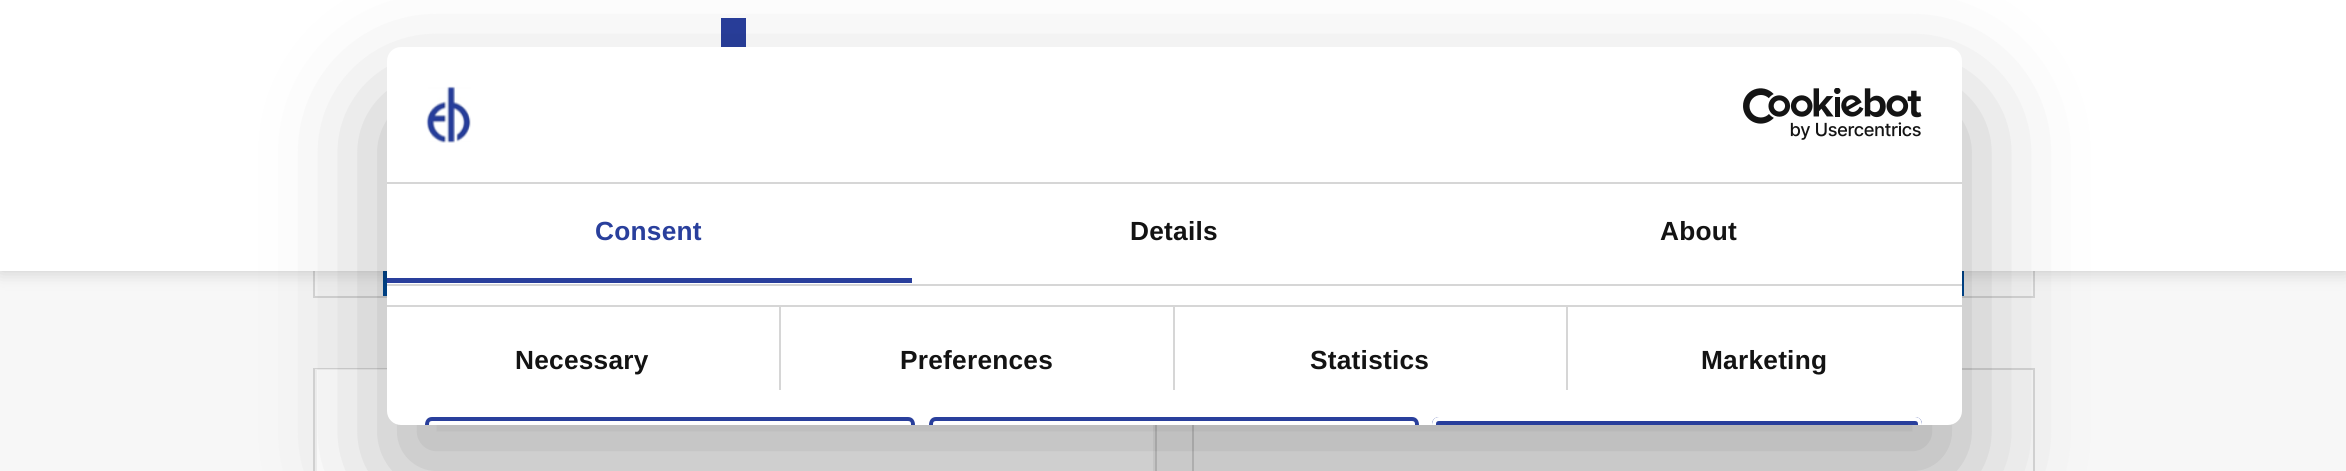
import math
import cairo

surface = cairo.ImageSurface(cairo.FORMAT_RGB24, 2346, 471)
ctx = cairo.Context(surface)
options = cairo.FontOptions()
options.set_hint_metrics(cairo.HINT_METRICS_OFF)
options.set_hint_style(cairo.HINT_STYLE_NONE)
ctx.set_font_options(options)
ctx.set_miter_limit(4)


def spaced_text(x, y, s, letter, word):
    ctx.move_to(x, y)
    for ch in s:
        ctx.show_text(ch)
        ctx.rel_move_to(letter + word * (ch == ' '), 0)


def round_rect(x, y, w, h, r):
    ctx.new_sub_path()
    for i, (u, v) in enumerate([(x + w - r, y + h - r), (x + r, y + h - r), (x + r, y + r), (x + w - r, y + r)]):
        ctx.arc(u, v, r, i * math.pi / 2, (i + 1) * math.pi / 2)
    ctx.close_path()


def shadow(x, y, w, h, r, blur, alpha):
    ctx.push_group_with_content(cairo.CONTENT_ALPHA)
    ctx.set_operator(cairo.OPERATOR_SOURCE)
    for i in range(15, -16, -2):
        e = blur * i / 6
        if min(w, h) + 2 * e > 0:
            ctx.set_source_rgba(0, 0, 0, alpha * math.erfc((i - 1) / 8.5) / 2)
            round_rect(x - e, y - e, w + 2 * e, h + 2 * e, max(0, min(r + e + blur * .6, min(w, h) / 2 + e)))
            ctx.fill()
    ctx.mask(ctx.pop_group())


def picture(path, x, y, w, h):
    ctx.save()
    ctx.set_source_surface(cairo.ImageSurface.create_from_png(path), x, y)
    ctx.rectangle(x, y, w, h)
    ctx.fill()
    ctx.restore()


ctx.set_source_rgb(0.965, 0.965, 0.965)
ctx.paint()
ctx.rectangle(314, -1, 842, 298)
ctx.set_source_rgb(0.839, 0.839, 0.839)
ctx.stroke()
ctx.set_source_rgb(0, 0.294, 0.6)
ctx.rectangle(383, 271, 4, 25)
ctx.fill()
ctx.rectangle(1193, -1, 841, 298)
ctx.set_source_rgb(0.839, 0.839, 0.839)
ctx.stroke()
ctx.set_source_rgb(0, 0.294, 0.6)
ctx.rectangle(1962, 271, 2, 25)
ctx.fill()
ctx.rectangle(314, 369, 842, 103)
ctx.set_source_rgb(0.839, 0.839, 0.839)
ctx.stroke()
ctx.rectangle(316, 370, 838, 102)
ctx.set_source_rgb(0.949, 0.949, 0.949)
ctx.stroke()
ctx.set_source_rgb(1, 1, 1)
ctx.rectangle(317, 370, 836, 101)
ctx.fill()
ctx.rectangle(1193, 369, 841, 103)
ctx.set_source_rgb(0.839, 0.839, 0.839)
ctx.stroke()
ctx.set_source_rgb(0, 0, 0)
shadow(0, 0, 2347, 271, 0, 9, 0.2)
ctx.set_source_rgb(1, 1, 1)
ctx.rectangle(0, 0, 2346, 271)
ctx.fill()
ctx.set_source_rgb(0.161, 0.247, 0.612)
ctx.new_path()
ctx.move_to(721, 18)
ctx.line_to(746, 18)
ctx.line_to(746, 83)
ctx.curve_to(827, 105, 835, 214, 758, 247)
ctx.line_to(758, 221)
ctx.curve_to(801, 192, 794, 126, 746, 107)
ctx.line_to(746, 251)
ctx.curve_to(738, 253, 730, 254, 721, 254)
ctx.close_path()
ctx.move_to(634, 167)
ctx.curve_to(634, 124, 665, 89, 707, 82)
ctx.line_to(707, 105)
ctx.curve_to(688, 109, 673, 122, 665, 139)
ctx.line_to(707, 139)
ctx.line_to(707, 164)
ctx.line_to(658, 164)
ctx.curve_to(657, 194, 678, 222, 707, 230)
ctx.line_to(707, 253)
ctx.curve_to(665, 246, 634, 210, 634, 167)
ctx.fill()
ctx.set_source_rgb(0, 0, 0)
shadow(387, 103, 1575, 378, 14, 59.5, 0.3)
ctx.set_source_rgb(1, 1, 1)
round_rect(387, 47, 1575, 378, 14)
ctx.fill()
ctx.set_source_rgb(0.839, 0.839, 0.839)
ctx.rectangle(387, 182, 1575, 2)
ctx.fill()
picture("img1.png", 426, 86, 45, 57)
picture("img2.png", 1743, 88, 179, 52)
ctx.rectangle(387, 284, 1575, 2)
ctx.fill()
ctx.set_source_rgb(0.161, 0.247, 0.612)
ctx.rectangle(387, 278, 525, 5)
ctx.fill()
ctx.select_font_face("Liberation Sans", cairo.FONT_SLANT_NORMAL, cairo.FONT_WEIGHT_BOLD)
ctx.set_font_size(26.25)
spaced_text(595, 240, "Consent", 0.25, 0)
ctx.set_source_rgb(0.078, 0.078, 0.078)
spaced_text(1130, 240, "Details", 0.25, 0)
spaced_text(1660, 240, "About", 0.25, 0)
ctx.set_source_rgb(0.839, 0.839, 0.839)
ctx.rectangle(779, 306, 2, 84)
ctx.fill()
ctx.rectangle(1173, 306, 2, 84)
ctx.fill()
ctx.rectangle(1566, 306, 2, 84)
ctx.fill()
ctx.rectangle(387, 305, 1575, 2)
ctx.fill()
ctx.set_source_rgb(0.078, 0.078, 0.078)
spaced_text(515, 369, "Necessary", 0.25, 0)
spaced_text(900, 369, "Preferences", 0.25, 0)
spaced_text(1310, 369, "Statistics", 0.25, 0)
spaced_text(1701, 369, "Marketing", 0.25, 0)
ctx.set_source_rgb(0.161, 0.247, 0.612)
ctx.new_path()
ctx.move_to(432, 417)
ctx.curve_to(427, 417, 425, 421, 425, 425)
ctx.line_to(429, 425)
ctx.line_to(429, 424)
ctx.curve_to(429, 422, 430, 421, 432, 421)
ctx.line_to(908, 421)
ctx.curve_to(910, 421, 911, 422, 911, 424)
ctx.line_to(911, 425)
ctx.line_to(915, 425)
ctx.curve_to(915, 421, 913, 417, 908, 417)
ctx.close_path()
ctx.fill()
ctx.new_path()
ctx.move_to(936, 417)
ctx.curve_to(931, 417, 929, 421, 929, 425)
ctx.line_to(933, 425)
ctx.line_to(933, 424)
ctx.curve_to(933, 422, 934, 421, 936, 421)
ctx.line_to(1412, 421)
ctx.curve_to(1414, 421, 1415, 422, 1415, 424)
ctx.line_to(1415, 425)
ctx.line_to(1419, 425)
ctx.curve_to(1419, 421, 1417, 417, 1412, 417)
ctx.close_path()
ctx.fill()
ctx.new_path()
ctx.move_to(1439, 417)
ctx.line_to(1915, 417)
ctx.curve_to(1919, 417, 1922, 420, 1922, 424)
ctx.line_to(1922, 425)
ctx.line_to(1432, 425)
ctx.line_to(1432, 424)
ctx.curve_to(1432, 420, 1435, 417, 1439, 417)
ctx.close_path()
ctx.fill()
ctx.set_source_rgb(1, 1, 1)
ctx.new_path()
ctx.move_to(1439, 417)
ctx.curve_to(1434, 417, 1432, 421, 1432, 425)
ctx.line_to(1436, 425)
ctx.line_to(1436, 424)
ctx.curve_to(1436, 422, 1437, 421, 1439, 421)
ctx.line_to(1915, 421)
ctx.curve_to(1917, 421, 1918, 422, 1918, 424)
ctx.line_to(1918, 425)
ctx.line_to(1922, 425)
ctx.curve_to(1922, 421, 1920, 417, 1915, 417)
ctx.close_path()
ctx.fill()
surface.write_to_png("page.png")
